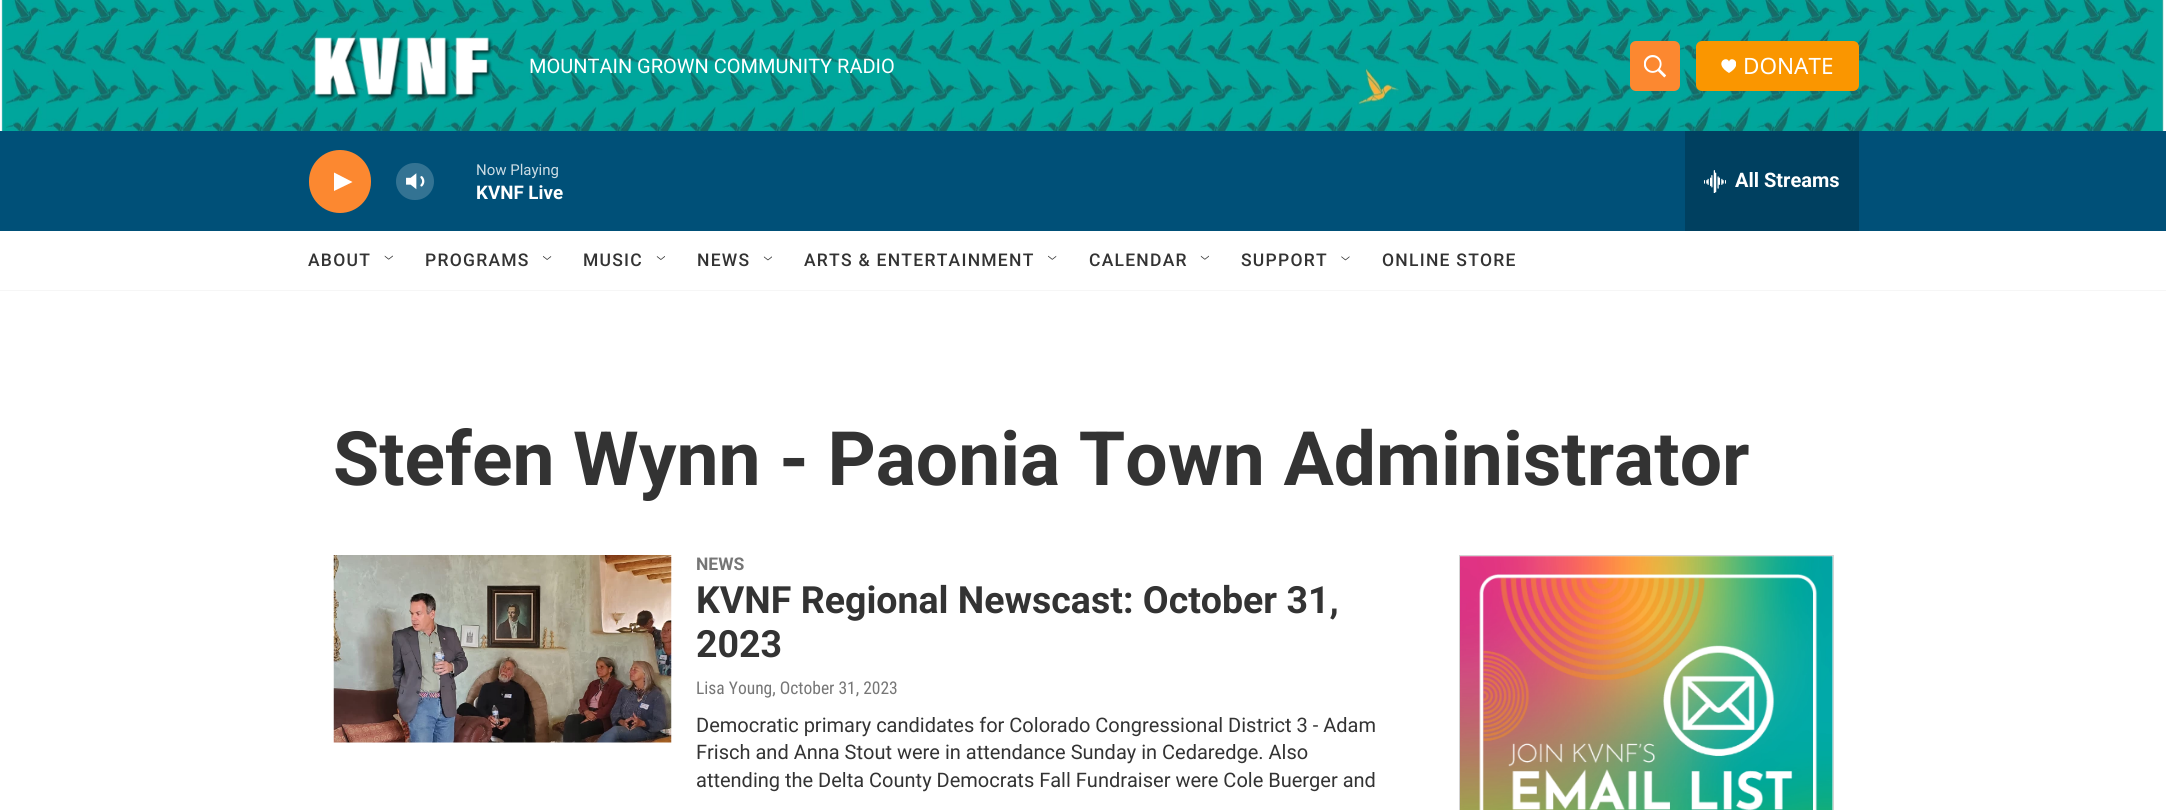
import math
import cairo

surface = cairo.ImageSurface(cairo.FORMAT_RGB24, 2166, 810)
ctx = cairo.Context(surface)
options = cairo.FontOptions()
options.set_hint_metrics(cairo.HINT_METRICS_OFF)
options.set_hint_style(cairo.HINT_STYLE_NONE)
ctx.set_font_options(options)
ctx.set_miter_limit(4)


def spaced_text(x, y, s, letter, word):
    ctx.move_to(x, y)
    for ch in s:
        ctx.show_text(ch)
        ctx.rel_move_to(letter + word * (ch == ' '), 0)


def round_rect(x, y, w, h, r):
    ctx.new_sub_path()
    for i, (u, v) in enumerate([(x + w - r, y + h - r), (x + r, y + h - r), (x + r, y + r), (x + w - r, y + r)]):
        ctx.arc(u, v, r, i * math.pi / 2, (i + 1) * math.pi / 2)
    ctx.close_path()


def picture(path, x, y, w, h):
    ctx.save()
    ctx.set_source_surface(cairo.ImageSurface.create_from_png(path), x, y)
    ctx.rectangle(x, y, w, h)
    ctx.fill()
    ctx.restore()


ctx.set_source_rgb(1, 1, 1)
ctx.paint()
ctx.set_source_rgb(0.961, 0.961, 0.961)
ctx.rectangle(0, 290, 2166, 1)
ctx.fill()
picture("img1.png", 1, 0, 2163, 131)
picture("img2.png", 314, 37, 179, 63)
ctx.select_font_face("Roboto")
ctx.set_font_size(20)
ctx.set_source_rgb(1, 1, 1)
ctx.move_to(529, 73)
ctx.show_text("MOUNTAIN GROWN COMMUNITY RADIO")
ctx.set_source_rgb(0.988, 0.533, 0.188)
round_rect(1630, 41, 50, 50, 6)
ctx.fill()
picture("img3.png", 1644, 55, 22, 23)
ctx.set_source_rgb(0.98, 0.588, 0)
round_rect(1696, 41, 163, 50, 6)
ctx.fill()
ctx.save()
ctx.rectangle(1721, 59, 15, 15)
ctx.clip()
ctx.set_source_rgb(1, 1, 1)
ctx.new_path()
ctx.move_to(1729, 61.5)
ctx.curve_to(1726.5, 55, 1713, 63.5, 1729, 73)
ctx.curve_to(1744.5, 63.5, 1731, 55, 1729, 61.5)
ctx.close_path()
ctx.fill()
ctx.restore()
ctx.select_font_face("Noto Sans")
ctx.set_font_size(22.5)
ctx.set_source_rgb(1, 1, 1)
ctx.move_to(1743, 74)
ctx.show_text("DONATE")
ctx.set_source_rgb(0, 0.314, 0.471)
ctx.rectangle(0, 131, 2166, 100)
ctx.fill()
ctx.set_source_rgb(0.988, 0.533, 0.188)
round_rect(309, 150, 62, 63, 31)
ctx.fill()
ctx.set_source_rgb(1, 1, 1)
ctx.new_path()
ctx.move_to(334, 172.5)
ctx.line_to(352.5, 182)
ctx.line_to(334, 191)
ctx.close_path()
ctx.fill()
picture("img4.png", 406, 173, 19, 17)
ctx.set_source_rgba(1, 1, 1, 0.2)
round_rect(396, 163, 38, 37, 18.5)
ctx.fill()
ctx.select_font_face("Roboto")
ctx.set_font_size(15)
ctx.set_source_rgb(0.8, 0.863, 0.894)
ctx.move_to(476, 175)
ctx.show_text("Now Playing")
ctx.select_font_face("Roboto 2", cairo.FONT_SLANT_NORMAL, cairo.FONT_WEIGHT_BOLD)
ctx.set_font_size(18.75)
ctx.set_source_rgb(1, 1, 1)
ctx.move_to(476, 199)
ctx.show_text("KVNF Live")
ctx.set_source_rgb(0, 0.251, 0.376)
ctx.rectangle(1685, 131, 174, 100)
ctx.fill()
picture("img5.png", 1704, 170, 22, 23)
ctx.set_font_size(20)
ctx.set_source_rgb(1, 1, 1)
ctx.move_to(1735, 187)
ctx.show_text("All Streams")
ctx.select_font_face("Roboto Medium")
ctx.set_font_size(17.5)
ctx.set_source_rgb(0.2, 0.2, 0.2)
spaced_text(308, 266, "ABOUT", 1.25, 0)
picture("img6.png", 384, 255, 9, 5)
spaced_text(425, 266, "PROGRAMS", 1.25, 0)
picture("img7.png", 543, 256, 9, 4)
spaced_text(583, 266, "MUSIC", 1.25, 0)
picture("img8.png", 656, 256, 9, 4)
spaced_text(697, 266, "NEWS", 1.25, 0)
picture("img9.png", 763, 256, 9, 5)
spaced_text(804, 266, "ARTS & ENTERTAINMENT", 1.25, 0)
picture("img10.png", 1048, 255, 9, 5)
spaced_text(1089, 266, "CALENDAR", 1.25, 0)
picture("img11.png", 1200, 255, 9, 5)
spaced_text(1241, 266, "SUPPORT", 1.25, 0)
picture("img12.png", 1341, 256, 9, 5)
spaced_text(1382, 266, "ONLINE STORE", 1.25, 0)
ctx.select_font_face("Roboto", cairo.FONT_SLANT_NORMAL, cairo.FONT_WEIGHT_BOLD)
ctx.set_font_size(75)
ctx.move_to(333, 485)
ctx.show_text("Stefen Wynn - Paonia Town Administrator")
picture("img13.png", 333, 555, 339, 188)
ctx.set_font_size(17.5)
ctx.set_source_rgb(0.463, 0.463, 0.463)
ctx.move_to(696, 570)
ctx.show_text("NEWS")
ctx.set_font_size(37.5)
ctx.set_source_rgb(0.2, 0.2, 0.2)
ctx.move_to(696, 613)
ctx.show_text("KVNF Regional Newscast: October 31,")
ctx.move_to(696, 657)
ctx.show_text("2023")
ctx.select_font_face("Roboto Condensed")
ctx.set_font_size(17.5)
ctx.set_source_rgb(0.463, 0.463, 0.463)
ctx.move_to(696, 694)
ctx.show_text("Lisa Young, October 31, 2023")
ctx.select_font_face("Roboto")
ctx.set_font_size(20)
ctx.set_source_rgb(0.2, 0.2, 0.2)
ctx.move_to(696, 732)
ctx.show_text("Democratic primary candidates for Colorado Congressional District 3 - Adam")
ctx.move_to(696, 759)
ctx.show_text("Frisch and Anna Stout were in attendance Sunday in Cedaredge. Also")
ctx.move_to(696, 787)
ctx.show_text("attending the Delta County Democrats Fall Fundraiser were Cole Buerger and")
ctx.rectangle(1459.5, 555.5, 374, 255)
ctx.set_source_rgb(0.827, 0.827, 0.827)
ctx.set_line_width(1)
ctx.stroke()
picture("img14.png", 1460, 556, 373, 254)
surface.write_to_png("page.png")
